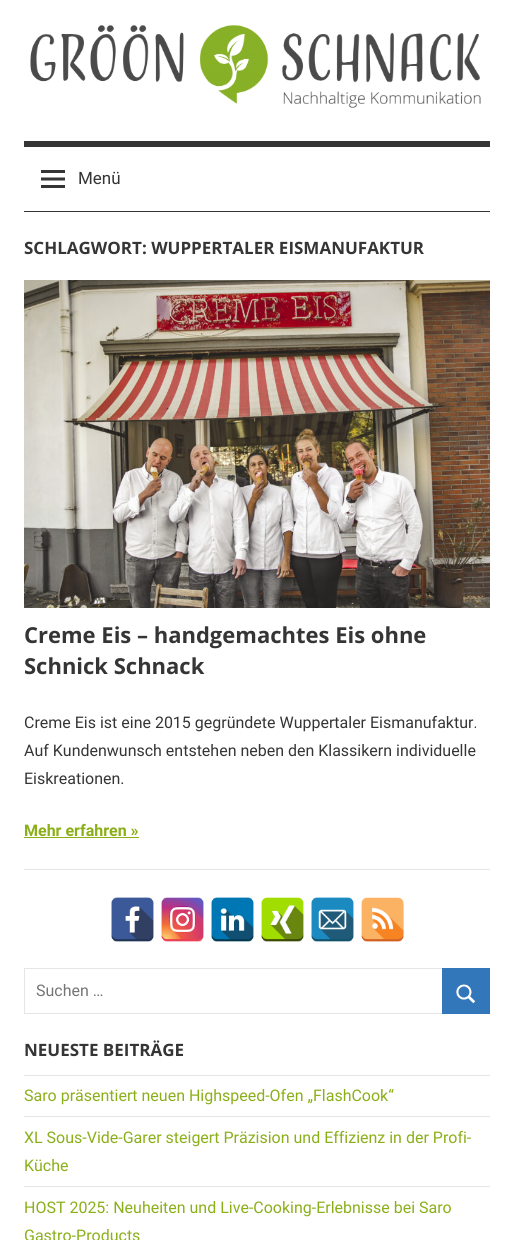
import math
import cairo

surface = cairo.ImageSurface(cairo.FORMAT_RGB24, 514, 1240)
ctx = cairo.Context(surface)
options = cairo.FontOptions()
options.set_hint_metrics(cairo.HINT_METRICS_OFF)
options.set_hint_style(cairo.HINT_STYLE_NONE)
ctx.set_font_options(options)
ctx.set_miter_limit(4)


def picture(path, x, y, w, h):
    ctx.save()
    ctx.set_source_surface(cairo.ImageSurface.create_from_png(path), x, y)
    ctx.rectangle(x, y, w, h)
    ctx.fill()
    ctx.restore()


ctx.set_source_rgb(1, 1, 1)
ctx.paint()
picture("img1.png", 30, 25, 451, 83)
ctx.set_source_rgb(0.208, 0.208, 0.208)
ctx.rectangle(24, 141, 466, 6)
ctx.fill()
ctx.rectangle(24, 211, 466, 1)
ctx.fill()
picture("img2.png", 41, 170, 24, 18)
ctx.select_font_face("Roboto")
ctx.set_font_size(17)
ctx.move_to(78, 184)
ctx.show_text("Menü")
ctx.select_font_face("Open Sans", cairo.FONT_SLANT_NORMAL, cairo.FONT_WEIGHT_BOLD)
ctx.move_to(24, 254)
ctx.show_text("SCHLAGWORT: WUPPERTALER EISMANUFAKTUR")
picture("img3.png", 24, 280, 466, 328)
ctx.set_font_size(22)
ctx.move_to(24, 643)
ctx.show_text("Creme Eis – handgemachtes Eis ohne")
ctx.move_to(24, 674)
ctx.show_text("Schnick Schnack")
ctx.select_font_face("Roboto")
ctx.set_font_size(16)
ctx.move_to(24, 728)
ctx.show_text("Creme Eis ist eine 2015 gegründete Wuppertaler Eismanufaktur.")
ctx.move_to(24, 756)
ctx.show_text("Auf Kundenwunsch entstehen neben den Klassikern individuelle")
ctx.move_to(24, 784)
ctx.show_text("Eiskreationen.")
ctx.select_font_face("Roboto", cairo.FONT_SLANT_NORMAL, cairo.FONT_WEIGHT_BOLD)
ctx.set_source_rgb(0.545, 0.686, 0.098)
ctx.move_to(24, 836)
ctx.show_text("Mehr erfahren »")
ctx.rectangle(24, 837, 115, 1)
ctx.fill()
ctx.set_source_rgb(0.902, 0.902, 0.902)
ctx.rectangle(24, 869, 466, 1)
ctx.fill()
picture("img4.png", 111, 897, 43, 45)
picture("img5.png", 161, 897, 43, 45)
picture("img6.png", 211, 897, 43, 45)
picture("img7.png", 261, 897, 43, 45)
picture("img8.png", 311, 897, 43, 45)
picture("img9.png", 361, 897, 43, 45)
ctx.rectangle(24.5, 968.5, 465, 45)
ctx.set_line_width(1)
ctx.stroke()
ctx.select_font_face("Roboto")
ctx.set_source_rgb(0.459, 0.459, 0.459)
ctx.move_to(36, 996)
ctx.show_text("Suchen …")
ctx.set_source_rgb(0.2, 0.467, 0.733)
ctx.rectangle(442, 968, 48, 46)
ctx.fill()
picture("img10.png", 456, 984, 20, 20)
ctx.select_font_face("Open Sans", cairo.FONT_SLANT_NORMAL, cairo.FONT_WEIGHT_BOLD)
ctx.set_font_size(17)
ctx.set_source_rgb(0.208, 0.208, 0.208)
ctx.move_to(24, 1056)
ctx.show_text("NEUESTE BEITRÄGE")
ctx.set_source_rgb(0.902, 0.902, 0.902)
ctx.rectangle(24, 1075, 466, 1)
ctx.fill()
ctx.select_font_face("Roboto")
ctx.set_font_size(16)
ctx.set_source_rgb(0.545, 0.686, 0.098)
ctx.move_to(24, 1101)
ctx.show_text("Saro präsentiert neuen Highspeed-Ofen „FlashCook“")
ctx.set_source_rgb(0.902, 0.902, 0.902)
ctx.rectangle(24, 1116, 466, 1)
ctx.fill()
ctx.set_source_rgb(0.545, 0.686, 0.098)
ctx.move_to(24, 1143)
ctx.show_text("XL Sous-Vide-Garer steigert Präzision und Effizienz in der Profi-")
ctx.move_to(24, 1171)
ctx.show_text("Küche")
ctx.set_source_rgb(0.902, 0.902, 0.902)
ctx.rectangle(24, 1186, 466, 1)
ctx.fill()
ctx.set_source_rgb(0.545, 0.686, 0.098)
ctx.move_to(24, 1213)
ctx.show_text("HOST 2025: Neuheiten und Live-Cooking-Erlebnisse bei Saro")
ctx.move_to(24, 1241)
ctx.show_text("Gastro-Products")
surface.write_to_png("page.png")
